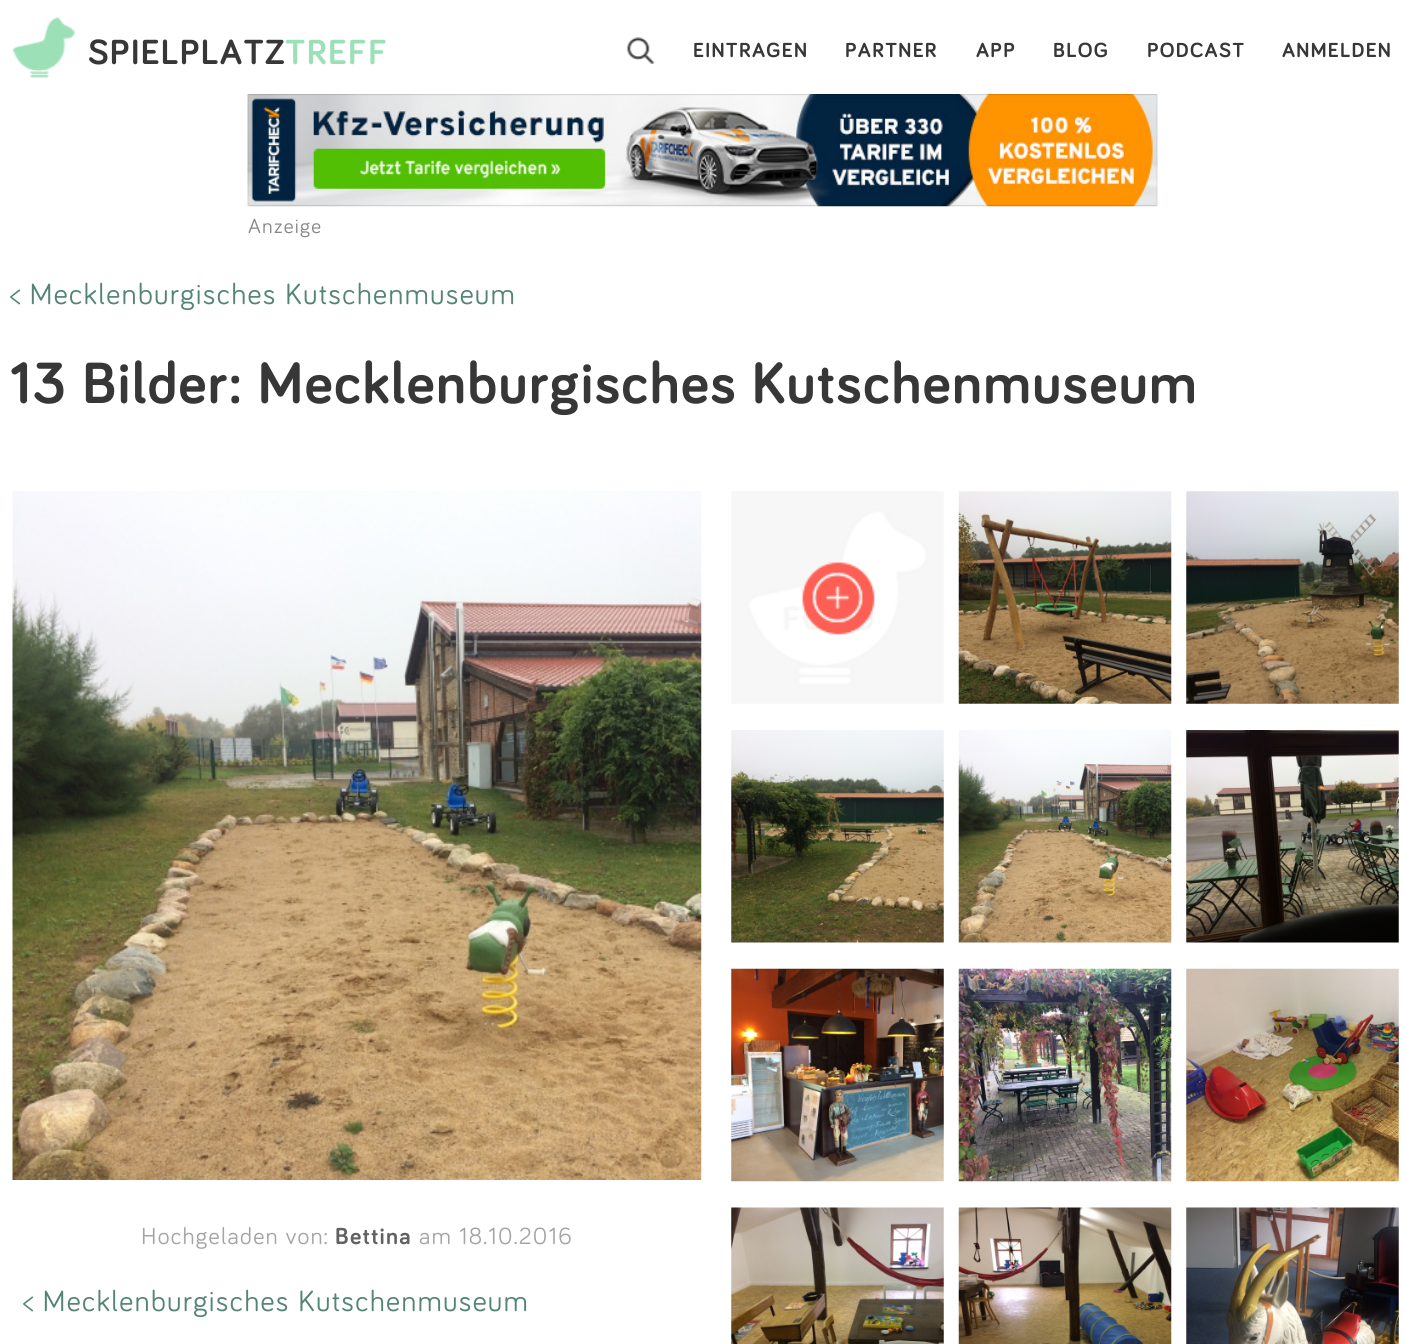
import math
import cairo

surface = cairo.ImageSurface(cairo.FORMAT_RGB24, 1405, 1344)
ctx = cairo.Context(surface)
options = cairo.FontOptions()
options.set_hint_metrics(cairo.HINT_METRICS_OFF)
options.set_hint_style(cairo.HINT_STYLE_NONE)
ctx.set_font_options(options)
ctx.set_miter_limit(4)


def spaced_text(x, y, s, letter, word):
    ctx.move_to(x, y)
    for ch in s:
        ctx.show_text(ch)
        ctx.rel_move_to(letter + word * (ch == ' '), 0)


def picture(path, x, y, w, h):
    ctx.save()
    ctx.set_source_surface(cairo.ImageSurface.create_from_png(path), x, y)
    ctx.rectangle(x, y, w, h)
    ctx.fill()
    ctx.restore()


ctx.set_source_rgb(1, 1, 1)
ctx.paint()
picture("img1.png", 13, 17, 63, 61)
ctx.select_font_face("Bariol", cairo.FONT_SLANT_NORMAL, cairo.FONT_WEIGHT_BOLD)
ctx.set_font_size(36)
ctx.set_source_rgb(0.216, 0.216, 0.216)
spaced_text(88, 64, "SPIELPLATZ", 1.25, 0)
ctx.set_source_rgb(0.612, 0.878, 0.718)
spaced_text(285, 64, "TREFF", 1.25, 0)
picture("img2.png", 626, 37, 29, 27)
ctx.set_font_size(21)
ctx.set_source_rgb(0.216, 0.216, 0.216)
spaced_text(693, 57, "EINTRAGEN", 1.25, 0)
spaced_text(845, 57, "PARTNER", 1.25, 0)
spaced_text(976, 57, "APP", 1.25, 0)
spaced_text(1053, 57, "BLOG", 1.25, 0)
spaced_text(1147, 57, "PODCAST", 1.25, 0)
spaced_text(1282, 57, "ANMELDEN", 1.25, 0)
picture("img3.png", 247, 94, 911, 113)
ctx.select_font_face("Bariol")
ctx.set_source_rgb(0.529, 0.529, 0.529)
spaced_text(248, 233, "Anzeige", 1.25, 0)
ctx.set_font_size(30)
ctx.set_source_rgb(0.325, 0.518, 0.463)
spaced_text(10, 304, "< Mecklenburgisches Kutschenmuseum", 1.25, 0)
ctx.select_font_face("Bariol", cairo.FONT_SLANT_NORMAL, cairo.FONT_WEIGHT_BOLD)
ctx.set_font_size(60)
ctx.set_source_rgb(0.216, 0.216, 0.216)
spaced_text(10, 403, "13 Bilder: Mecklenburgisches Kutschenmuseum", 1.25, 0)
picture("img4.png", 12, 491, 690, 689)
ctx.select_font_face("Bariol")
ctx.set_font_size(24)
ctx.set_source_rgb(0.639, 0.643, 0.639)
spaced_text(141, 1244, "Hochgeladen von:", 1.25, 0)
ctx.select_font_face("Bariol", cairo.FONT_SLANT_NORMAL, cairo.FONT_WEIGHT_BOLD)
ctx.set_source_rgb(0.388, 0.38, 0.38)
spaced_text(335, 1244, "Bettina", 1.25, 0)
ctx.select_font_face("Bariol")
ctx.set_source_rgb(0.639, 0.643, 0.639)
spaced_text(419, 1244, "am 18.10.2016", 1.25, 0)
ctx.set_font_size(30)
ctx.set_source_rgb(0.325, 0.518, 0.463)
spaced_text(23, 1311, "< Mecklenburgisches Kutschenmuseum", 1.25, 0)
picture("img5.png", 731, 491, 213, 213)
picture("img6.png", 958, 491, 214, 213)
picture("img7.png", 1186, 491, 213, 213)
picture("img8.png", 731, 730, 213, 213)
picture("img9.png", 958, 730, 214, 213)
picture("img10.png", 1186, 730, 213, 213)
picture("img11.png", 731, 968, 213, 214)
picture("img12.png", 958, 968, 214, 214)
picture("img13.png", 1186, 968, 213, 214)
picture("img14.png", 731, 1207, 213, 137)
picture("img15.png", 958, 1207, 214, 137)
picture("img16.png", 1186, 1207, 213, 137)
surface.write_to_png("page.png")
